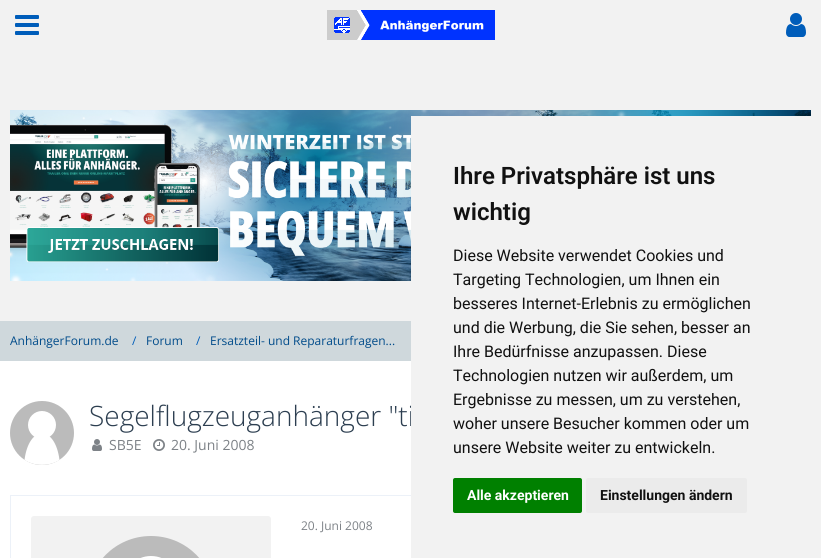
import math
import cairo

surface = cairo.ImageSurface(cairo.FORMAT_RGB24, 821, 558)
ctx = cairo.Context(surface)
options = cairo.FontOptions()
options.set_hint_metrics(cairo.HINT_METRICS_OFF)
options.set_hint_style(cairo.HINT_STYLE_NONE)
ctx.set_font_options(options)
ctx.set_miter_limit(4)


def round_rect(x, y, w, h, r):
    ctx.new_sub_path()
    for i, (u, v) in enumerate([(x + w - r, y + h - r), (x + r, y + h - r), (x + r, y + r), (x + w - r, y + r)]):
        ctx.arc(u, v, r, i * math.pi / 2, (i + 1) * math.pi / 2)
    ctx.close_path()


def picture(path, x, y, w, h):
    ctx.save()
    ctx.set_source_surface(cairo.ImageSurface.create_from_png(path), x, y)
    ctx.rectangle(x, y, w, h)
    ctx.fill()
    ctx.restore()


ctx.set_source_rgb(1, 1, 1)
ctx.paint()
ctx.set_source_rgb(0.949, 0.949, 0.949)
ctx.rectangle(0, 0, 821, 321)
ctx.fill()
picture("img1.png", 327, 10, 168, 30)
picture("img2.png", 15, 15, 24, 20)
picture("img3.png", 786, 13, 20, 24)
picture("img4.png", 10, 110, 801, 171)
ctx.set_source_rgb(0.812, 0.847, 0.863)
ctx.rectangle(0, 321, 411, 40)
ctx.fill()
ctx.select_font_face("Open Sans")
ctx.set_font_size(12)
ctx.set_source_rgb(0, 0.294, 0.541)
ctx.move_to(10, 345)
ctx.show_text("AnhängerForum.de")
ctx.set_source_rgb(0, 0.365, 0.729)
ctx.move_to(132, 345)
ctx.show_text("/")
ctx.set_source_rgb(0, 0.294, 0.541)
ctx.move_to(146, 345)
ctx.show_text("Forum")
ctx.set_source_rgb(0, 0.365, 0.729)
ctx.move_to(196, 345)
ctx.show_text("/")
ctx.set_source_rgb(0, 0.294, 0.541)
ctx.move_to(210, 345)
ctx.show_text("Ersatzteil- und Reparaturfragen...")
ctx.set_source_rgb(0.733, 0.733, 0.733)
ctx.new_path()
ctx.arc(42, 433, 32, 0, 2 * math.pi)
ctx.fill()
ctx.set_source_rgb(1, 1, 1)
ctx.new_path()
ctx.move_to(59.5, 460)
ctx.curve_to(49, 466.5, 35, 466.5, 24.5, 460)
ctx.curve_to(29, 424.5, 55, 424.5, 59.5, 460)
ctx.close_path()
ctx.fill()
ctx.arc(42, 425, 14, 0, 2 * math.pi)
ctx.fill()
ctx.select_font_face("Open Sans Light")
ctx.set_font_size(28)
ctx.set_source_rgb(0.173, 0.243, 0.314)
ctx.move_to(89, 426)
ctx.show_text("Segelflugzeuganhänger \"ti")
picture("img5.png", 92, 439, 10, 12)
ctx.select_font_face("Open Sans")
ctx.set_font_size(14)
ctx.set_source_rgb(0.49, 0.51, 0.529)
ctx.move_to(109, 450)
ctx.show_text("SB5E")
picture("img6.png", 153, 439, 12, 12)
ctx.move_to(171, 450)
ctx.show_text("20. Juni 2008")
ctx.rectangle(10.5, 495.5, 800, 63)
ctx.set_source_rgb(0.925, 0.945, 0.969)
ctx.set_line_width(1)
ctx.stroke()
ctx.set_source_rgb(0.949, 0.949, 0.949)
round_rect(31, 516, 240, 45, 3)
ctx.fill()
ctx.set_source_rgb(0.733, 0.733, 0.733)
round_rect(87, 536, 128, 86, 64)
ctx.fill()
ctx.set_source_rgb(1, 1, 1)
ctx.arc(151, 584, 28, 0, 2 * math.pi)
ctx.fill()
ctx.set_font_size(12)
ctx.set_source_rgb(0.49, 0.51, 0.529)
ctx.move_to(301, 530)
ctx.show_text("20. Juni 2008")
ctx.set_source_rgb(0.949, 0.949, 0.949)
ctx.rectangle(411, 116, 410, 442)
ctx.fill()
ctx.select_font_face("Roboto SemiBold")
ctx.set_font_size(24)
ctx.set_source_rgb(0.067, 0.067, 0.067)
ctx.move_to(453, 184)
ctx.show_text("Ihre Privatsphäre ist uns")
ctx.move_to(453, 220)
ctx.show_text("wichtig")
ctx.select_font_face("Roboto")
ctx.set_font_size(16)
ctx.move_to(453, 261)
ctx.show_text("Diese Website verwendet Cookies und")
ctx.move_to(453, 285)
ctx.show_text("Targeting Technologien, um Ihnen ein")
ctx.move_to(453, 309)
ctx.show_text("besseres Internet-Erlebnis zu ermöglichen")
ctx.move_to(453, 333)
ctx.show_text("und die Werbung, die Sie sehen, besser an")
ctx.move_to(453, 357)
ctx.show_text("Ihre Bedürfnisse anzupassen. Diese")
ctx.move_to(453, 381)
ctx.show_text("Technologien nutzen wir außerdem, um")
ctx.move_to(453, 405)
ctx.show_text("Ergebnisse zu messen, um zu verstehen,")
ctx.move_to(453, 429)
ctx.show_text("woher unsere Besucher kommen oder um")
ctx.move_to(453, 453)
ctx.show_text("unsere Website weiter zu entwickeln.")
ctx.set_source_rgb(0, 0.502, 0)
round_rect(453, 478, 129, 35, 2)
ctx.fill()
ctx.select_font_face("Roboto", cairo.FONT_SLANT_NORMAL, cairo.FONT_WEIGHT_BOLD)
ctx.set_font_size(14)
ctx.set_source_rgb(1, 1, 1)
ctx.move_to(467, 500)
ctx.show_text("Alle akzeptieren")
ctx.set_source_rgb(0.918, 0.918, 0.918)
round_rect(586, 478, 161, 35, 2)
ctx.fill()
ctx.set_source_rgb(0.067, 0.067, 0.067)
ctx.move_to(600, 500)
ctx.show_text("Einstellungen ändern")
surface.write_to_png("page.png")
